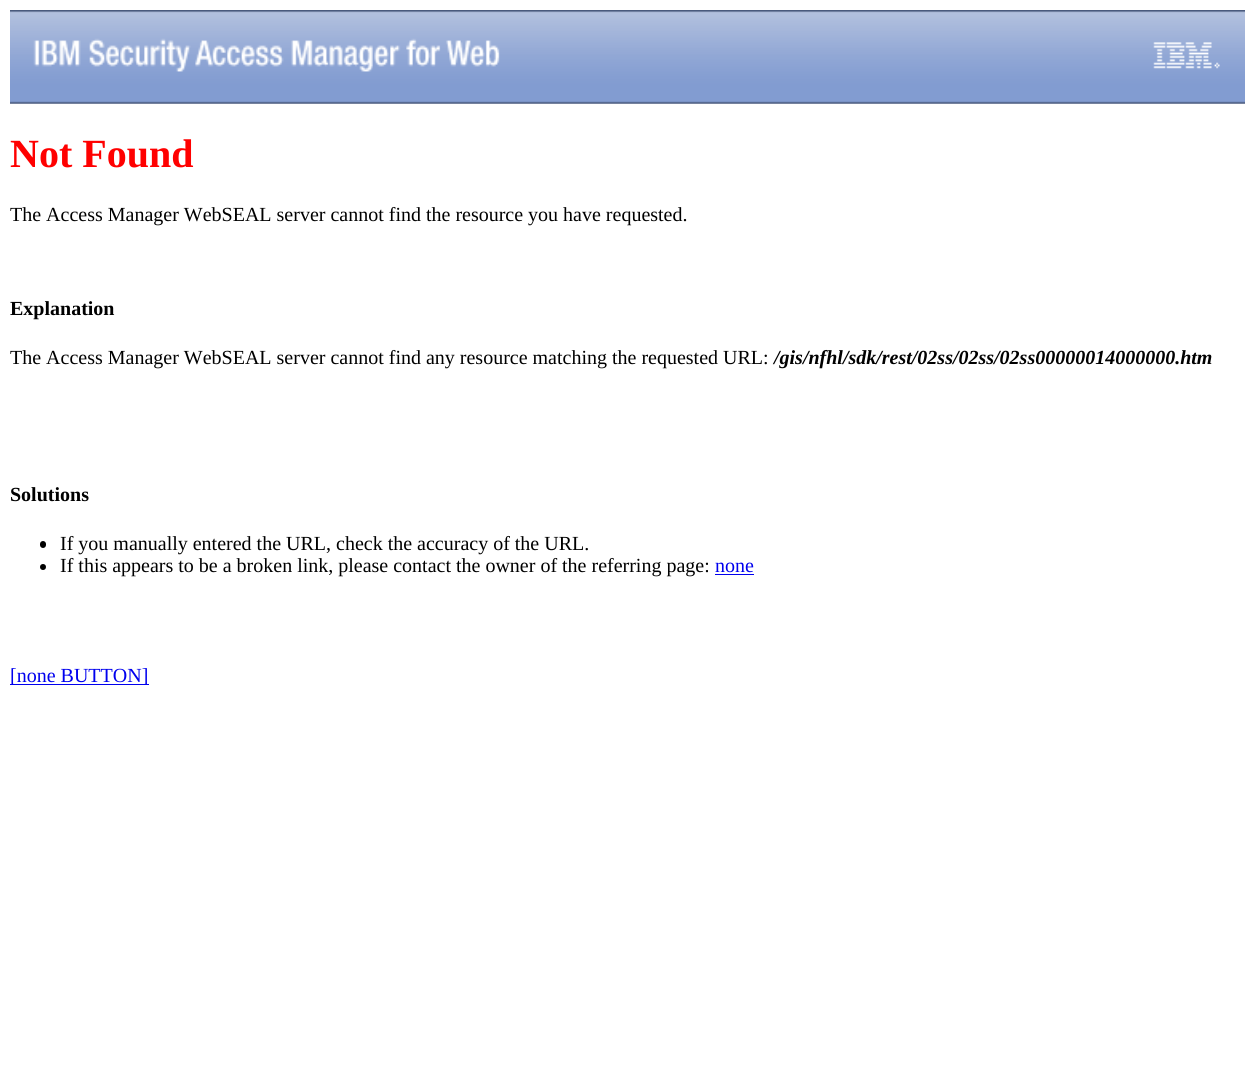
import math
import cairo

surface = cairo.ImageSurface(cairo.FORMAT_RGB24, 1255, 1075)
ctx = cairo.Context(surface)
options = cairo.FontOptions()
options.set_hint_metrics(cairo.HINT_METRICS_OFF)
options.set_hint_style(cairo.HINT_STYLE_NONE)
ctx.set_font_options(options)
ctx.set_miter_limit(4)


def round_rect(x, y, w, h, r):
    ctx.new_sub_path()
    for i, (u, v) in enumerate([(x + w - r, y + h - r), (x + r, y + h - r), (x + r, y + r), (x + w - r, y + r)]):
        ctx.arc(u, v, r, i * math.pi / 2, (i + 1) * math.pi / 2)
    ctx.close_path()


def picture(path, x, y, w, h):
    ctx.save()
    ctx.set_source_surface(cairo.ImageSurface.create_from_png(path), x, y)
    ctx.rectangle(x, y, w, h)
    ctx.fill()
    ctx.restore()


ctx.set_source_rgb(1, 1, 1)
ctx.paint()
picture("img1.png", 10, 10, 1235, 94)
ctx.select_font_face("Liberation Serif", cairo.FONT_SLANT_NORMAL, cairo.FONT_WEIGHT_BOLD)
ctx.set_font_size(40)
ctx.set_source_rgb(1, 0, 0)
ctx.move_to(10, 167)
ctx.show_text("Not Found")
ctx.select_font_face("Liberation Serif")
ctx.set_font_size(20)
ctx.set_source_rgb(0, 0, 0)
ctx.move_to(10, 221)
ctx.show_text("The Access Manager WebSEAL server cannot find the resource you have requested.")
ctx.select_font_face("Liberation Serif", cairo.FONT_SLANT_NORMAL, cairo.FONT_WEIGHT_BOLD)
ctx.move_to(10, 315)
ctx.show_text("Explanation")
ctx.select_font_face("Liberation Serif")
ctx.move_to(10, 364)
ctx.show_text("The Access Manager WebSEAL server cannot find any resource matching the requested URL:")
ctx.select_font_face("Liberation Serif", cairo.FONT_SLANT_ITALIC, cairo.FONT_WEIGHT_BOLD)
ctx.move_to(774, 364)
ctx.show_text("/gis/nfhl/sdk/rest/02ss/02ss/02ss00000014000000.htm")
ctx.select_font_face("Liberation Serif", cairo.FONT_SLANT_NORMAL, cairo.FONT_WEIGHT_BOLD)
ctx.move_to(10, 501)
ctx.show_text("Solutions")
round_rect(40, 541, 6, 7, 3)
ctx.fill()
ctx.select_font_face("Liberation Serif")
ctx.move_to(60, 550)
ctx.show_text("If you manually entered the URL, check the accuracy of the URL.")
ctx.new_path()
ctx.arc(43, 567, 3, 0, 2 * math.pi)
ctx.fill()
ctx.move_to(60, 572)
ctx.show_text("If this appears to be a broken link, please contact the owner of the referring page:")
ctx.set_source_rgb(0, 0, 0.933)
ctx.move_to(715, 572)
ctx.show_text("none")
ctx.rectangle(715, 574, 39, 1)
ctx.fill()
ctx.rectangle(10, 684, 139, 1)
ctx.fill()
ctx.move_to(10, 682)
ctx.show_text("[none BUTTON]")
surface.write_to_png("page.png")
